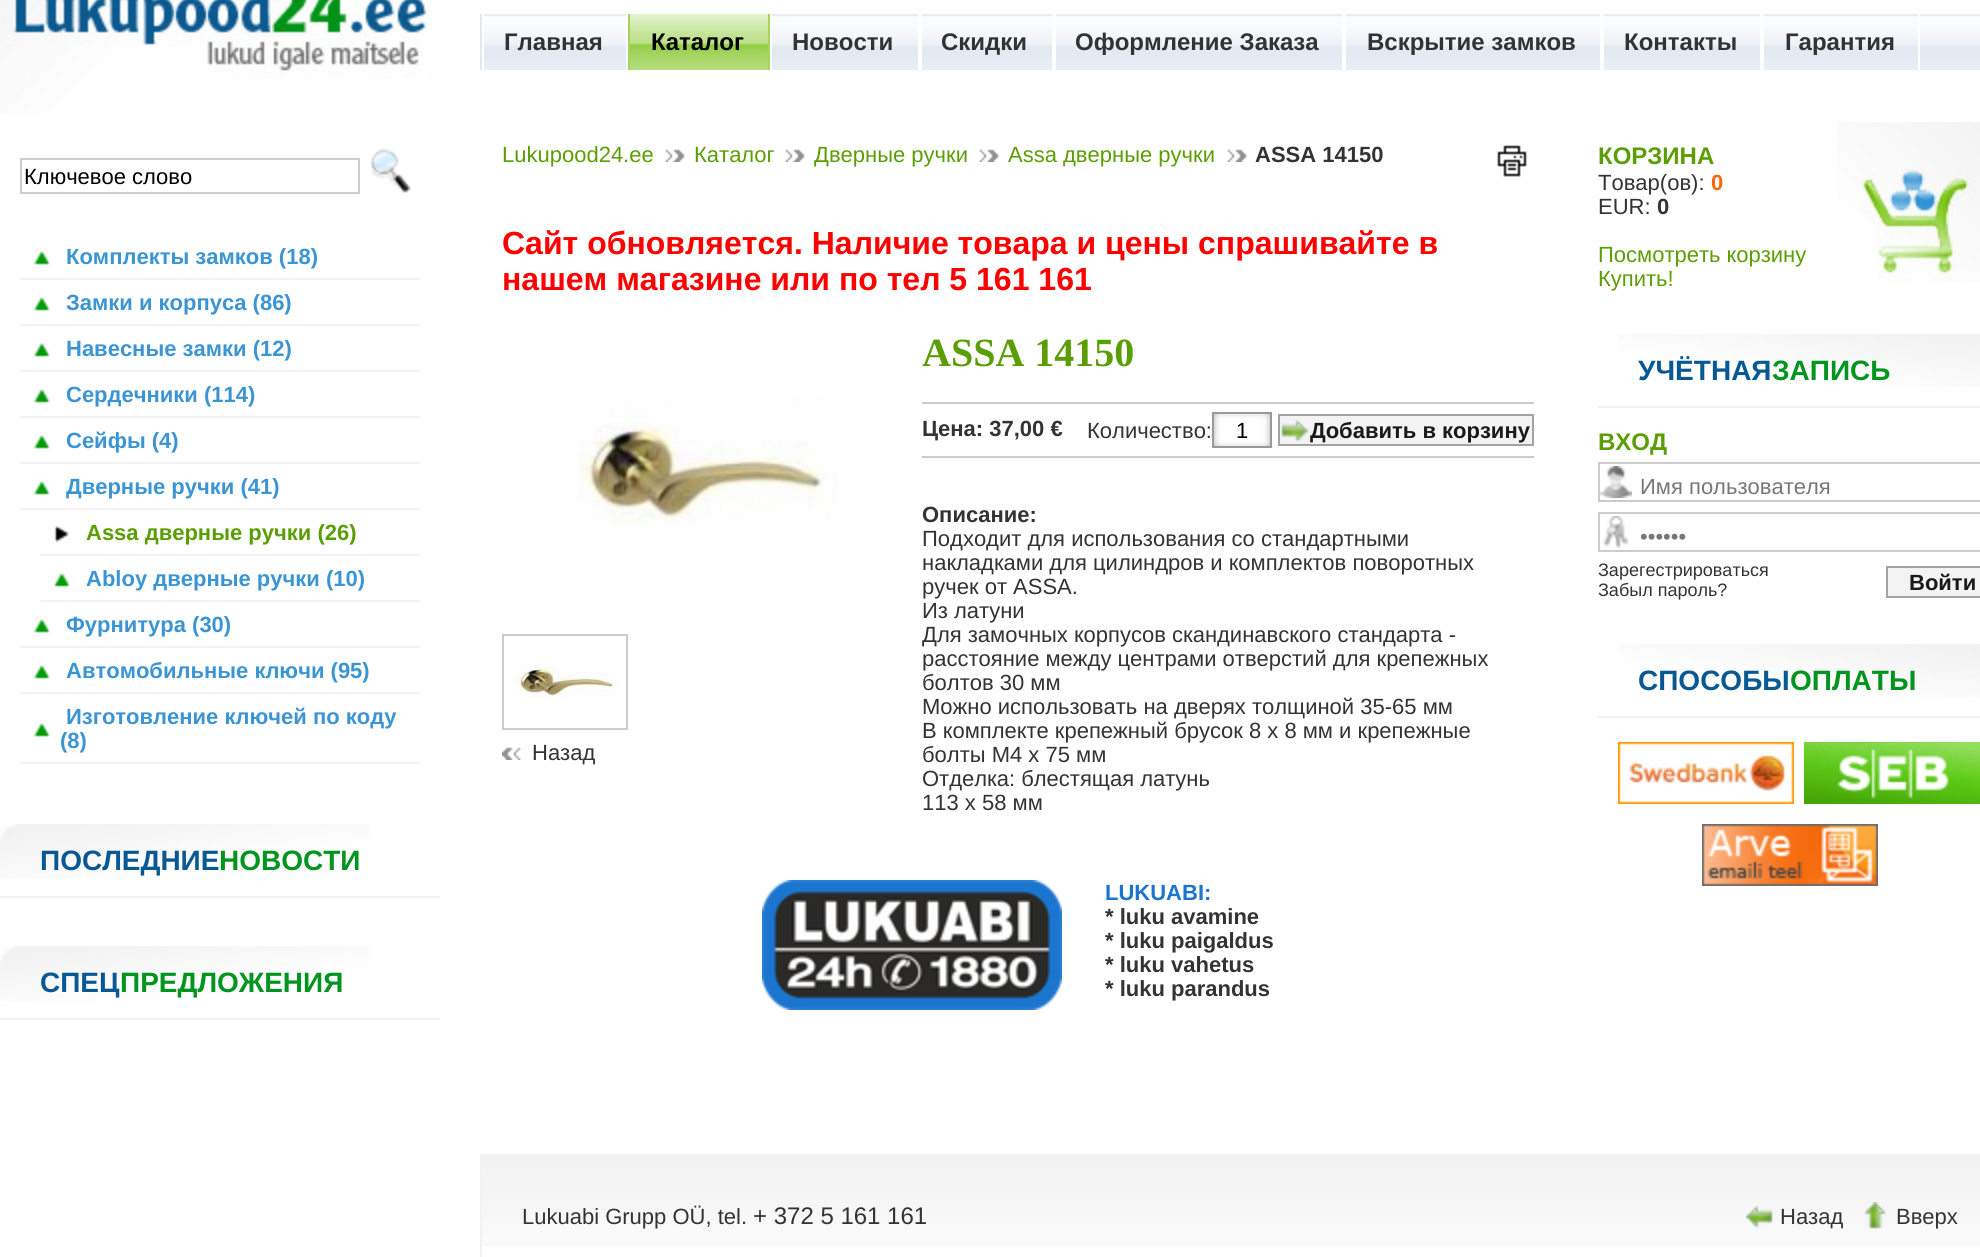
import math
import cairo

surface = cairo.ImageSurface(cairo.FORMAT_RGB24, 1980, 1257)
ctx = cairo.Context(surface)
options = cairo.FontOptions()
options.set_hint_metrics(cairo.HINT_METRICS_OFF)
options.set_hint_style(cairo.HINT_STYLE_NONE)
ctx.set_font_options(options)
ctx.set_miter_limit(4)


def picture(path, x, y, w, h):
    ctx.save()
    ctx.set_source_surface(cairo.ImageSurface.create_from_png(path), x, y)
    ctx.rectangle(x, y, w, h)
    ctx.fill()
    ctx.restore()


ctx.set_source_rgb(1, 1, 1)
ctx.paint()
picture("img1.png", 0, 0, 432, 113)
ctx.rectangle(21, 159, 338, 34)
ctx.set_source_rgb(0.8, 0.8, 0.8)
ctx.stroke()
ctx.select_font_face("Liberation Sans")
ctx.set_font_size(22)
ctx.set_source_rgb(0, 0, 0)
ctx.move_to(24, 184)
ctx.show_text("Ключевое слово")
picture("img2.png", 370, 148, 41, 45)
picture("img3.png", 34, 251, 17, 14)
ctx.set_source_rgb(0.949, 0.949, 0.949)
ctx.rectangle(20, 278, 400, 2)
ctx.fill()
ctx.select_font_face("Liberation Sans", cairo.FONT_SLANT_NORMAL, cairo.FONT_WEIGHT_BOLD)
ctx.set_source_rgb(0.231, 0.584, 0.831)
ctx.move_to(66, 264)
ctx.show_text("Комплекты замков (18)")
picture("img3.png", 34, 297, 17, 14)
ctx.set_source_rgb(0.949, 0.949, 0.949)
ctx.rectangle(20, 324, 400, 2)
ctx.fill()
ctx.set_source_rgb(0.231, 0.584, 0.831)
ctx.move_to(66, 310)
ctx.show_text("Замки и корпуса (86)")
picture("img3.png", 34, 343, 17, 14)
ctx.set_source_rgb(0.949, 0.949, 0.949)
ctx.rectangle(20, 370, 400, 2)
ctx.fill()
ctx.set_source_rgb(0.231, 0.584, 0.831)
ctx.move_to(66, 356)
ctx.show_text("Навесные замки (12)")
picture("img3.png", 34, 389, 17, 14)
ctx.set_source_rgb(0.949, 0.949, 0.949)
ctx.rectangle(20, 416, 400, 2)
ctx.fill()
ctx.set_source_rgb(0.231, 0.584, 0.831)
ctx.move_to(66, 402)
ctx.show_text("Сердечники (114)")
picture("img3.png", 34, 435, 17, 14)
ctx.set_source_rgb(0.949, 0.949, 0.949)
ctx.rectangle(20, 462, 400, 2)
ctx.fill()
ctx.set_source_rgb(0.231, 0.584, 0.831)
ctx.move_to(66, 448)
ctx.show_text("Сейфы (4)")
picture("img3.png", 34, 481, 17, 14)
ctx.set_source_rgb(0.949, 0.949, 0.949)
ctx.rectangle(20, 508, 400, 2)
ctx.fill()
ctx.set_source_rgb(0.231, 0.584, 0.831)
ctx.move_to(66, 494)
ctx.show_text("Дверные ручки (41)")
picture("img4.png", 54, 525, 15, 17)
ctx.set_source_rgb(0.949, 0.949, 0.949)
ctx.rectangle(40, 554, 380, 2)
ctx.fill()
ctx.set_source_rgb(0.357, 0.62, 0.012)
ctx.move_to(86, 540)
ctx.show_text("Assa дверные ручки (26)")
picture("img3.png", 54, 573, 17, 14)
ctx.set_source_rgb(0.949, 0.949, 0.949)
ctx.rectangle(40, 600, 380, 2)
ctx.fill()
ctx.set_source_rgb(0.231, 0.584, 0.831)
ctx.move_to(86, 586)
ctx.show_text("Abloy дверные ручки (10)")
picture("img3.png", 34, 619, 17, 14)
ctx.set_source_rgb(0.949, 0.949, 0.949)
ctx.rectangle(20, 646, 400, 2)
ctx.fill()
ctx.set_source_rgb(0.231, 0.584, 0.831)
ctx.move_to(66, 632)
ctx.show_text("Фурнитура (30)")
picture("img3.png", 34, 665, 17, 14)
ctx.set_source_rgb(0.949, 0.949, 0.949)
ctx.rectangle(20, 692, 400, 2)
ctx.fill()
ctx.set_source_rgb(0.231, 0.584, 0.831)
ctx.move_to(66, 678)
ctx.show_text("Автомобильные ключи (95)")
picture("img3.png", 34, 723, 17, 14)
ctx.set_source_rgb(0.949, 0.949, 0.949)
ctx.rectangle(20, 762, 400, 2)
ctx.fill()
ctx.set_source_rgb(0.231, 0.584, 0.831)
ctx.move_to(66, 724)
ctx.show_text("Изготовление ключей по коду")
ctx.move_to(60, 748)
ctx.show_text("(8)")
picture("img5.png", 0, 824, 369, 55)
ctx.set_source_rgb(0.949, 0.949, 0.949)
ctx.rectangle(0, 896, 440, 2)
ctx.fill()
ctx.set_font_size(28)
ctx.set_source_rgb(0.031, 0.345, 0.576)
ctx.move_to(40, 870)
ctx.show_text("ПОСЛЕДНИЕ")
ctx.set_source_rgb(0.004, 0.58, 0.122)
ctx.move_to(219, 870)
ctx.show_text("НОВОСТИ")
picture("img5.png", 0, 946, 369, 55)
ctx.set_source_rgb(0.949, 0.949, 0.949)
ctx.rectangle(0, 1018, 440, 2)
ctx.fill()
ctx.set_source_rgb(0.031, 0.345, 0.576)
ctx.move_to(40, 992)
ctx.show_text("СПЕЦ")
ctx.set_source_rgb(0.004, 0.58, 0.122)
ctx.move_to(120, 992)
ctx.show_text("ПРЕДЛОЖЕНИЯ")
picture("img6.png", 484, 14, 1496, 56)
ctx.set_source_rgb(0.882, 0.91, 0.941)
ctx.rectangle(480, 14, 2, 56)
ctx.fill()
ctx.set_source_rgb(1, 1, 1)
ctx.rectangle(626, 14, 2, 56)
ctx.fill()
ctx.set_font_size(24)
ctx.set_source_rgb(0.2, 0.2, 0.2)
ctx.move_to(504, 50)
ctx.show_text("Главная")
picture("img7.png", 630, 14, 138, 56)
ctx.set_source_rgb(0.639, 0.835, 0.376)
ctx.rectangle(768, 14, 2, 56)
ctx.fill()
ctx.rectangle(628, 14, 2, 56)
ctx.fill()
ctx.set_source_rgb(0, 0, 0)
ctx.move_to(651, 50)
ctx.show_text("Каталог")
ctx.set_source_rgb(1, 1, 1)
ctx.rectangle(918, 14, 4, 56)
ctx.fill()
ctx.rectangle(770, 14, 2, 56)
ctx.fill()
ctx.set_source_rgb(0.2, 0.2, 0.2)
ctx.move_to(792, 50)
ctx.show_text("Новости")
ctx.set_source_rgb(1, 1, 1)
ctx.rectangle(1052, 14, 4, 56)
ctx.fill()
ctx.set_source_rgb(0.2, 0.2, 0.2)
ctx.move_to(941, 50)
ctx.show_text("Скидки")
ctx.set_source_rgb(1, 1, 1)
ctx.rectangle(1342, 14, 4, 56)
ctx.fill()
ctx.set_source_rgb(0.2, 0.2, 0.2)
ctx.move_to(1075, 50)
ctx.show_text("Оформление Заказа")
ctx.set_source_rgb(1, 1, 1)
ctx.rectangle(1600, 14, 4, 56)
ctx.fill()
ctx.set_source_rgb(0.2, 0.2, 0.2)
ctx.move_to(1367, 50)
ctx.show_text("Вскрытие замков")
ctx.set_source_rgb(1, 1, 1)
ctx.rectangle(1760, 14, 4, 56)
ctx.fill()
ctx.set_source_rgb(0.2, 0.2, 0.2)
ctx.move_to(1624, 50)
ctx.show_text("Контакты")
ctx.set_source_rgb(1, 1, 1)
ctx.rectangle(1918, 14, 2, 56)
ctx.fill()
ctx.set_source_rgb(0.2, 0.2, 0.2)
ctx.move_to(1785, 50)
ctx.show_text("Гарантия")
ctx.select_font_face("Liberation Sans")
ctx.set_font_size(22)
ctx.set_source_rgb(0.357, 0.62, 0.012)
ctx.move_to(502, 162)
ctx.show_text("Lukupood24.ee")
picture("img8.png", 665, 149, 20, 13)
ctx.move_to(694, 162)
ctx.show_text("Каталог")
picture("img8.png", 785, 149, 20, 13)
ctx.move_to(814, 162)
ctx.show_text("Дверные ручки")
picture("img8.png", 979, 149, 20, 13)
ctx.move_to(1008, 162)
ctx.show_text("Assa дверные ручки")
picture("img8.png", 1227, 149, 20, 13)
ctx.select_font_face("Liberation Sans", cairo.FONT_SLANT_NORMAL, cairo.FONT_WEIGHT_BOLD)
ctx.set_source_rgb(0.2, 0.2, 0.2)
ctx.move_to(1255, 162)
ctx.show_text("ASSA 14150")
picture("img9.png", 1497, 145, 30, 32)
ctx.set_font_size(32)
ctx.set_source_rgb(1, 0, 0)
ctx.move_to(502, 254)
ctx.show_text("Сайт обновляется. Наличие товара и цены спрашивайте в")
ctx.move_to(502, 290)
ctx.show_text("нашем магазине или по тел 5 161 161")
picture("img10.png", 578, 398, 260, 128)
ctx.rectangle(503, 635, 124, 94)
ctx.set_source_rgb(0.8, 0.8, 0.8)
ctx.stroke()
picture("img11.png", 515, 660, 105, 38)
picture("img12.png", 502, 747, 19, 13)
ctx.select_font_face("Liberation Sans")
ctx.set_font_size(22)
ctx.set_source_rgb(0.2, 0.2, 0.2)
ctx.move_to(532, 760)
ctx.show_text("Назад")
ctx.select_font_face("Liberation Serif", cairo.FONT_SLANT_NORMAL, cairo.FONT_WEIGHT_BOLD)
ctx.set_font_size(40)
ctx.set_source_rgb(0.357, 0.62, 0.012)
ctx.move_to(922, 366)
ctx.show_text("ASSA 14150")
ctx.set_source_rgb(0.8, 0.8, 0.8)
ctx.rectangle(922, 402, 612, 2)
ctx.fill()
ctx.rectangle(922, 456, 612, 2)
ctx.fill()
ctx.select_font_face("Liberation Sans", cairo.FONT_SLANT_NORMAL, cairo.FONT_WEIGHT_BOLD)
ctx.set_font_size(22)
ctx.set_source_rgb(0.2, 0.2, 0.2)
ctx.move_to(922, 436)
ctx.show_text("Цена: 37,00 €")
ctx.select_font_face("Liberation Sans")
ctx.move_to(1087, 438)
ctx.show_text("Количество:")
picture("img13.png", 1214, 414, 56, 32)
ctx.rectangle(1213, 413, 58, 34)
ctx.set_source_rgb(0.6, 0.6, 0.6)
ctx.stroke()
ctx.set_source_rgb(0, 0, 0)
ctx.move_to(1236, 438)
ctx.show_text("1")
ctx.set_source_rgb(0.953, 0.953, 0.953)
ctx.rectangle(1280, 416, 252, 28)
ctx.fill()
picture("img14.png", 1281, 419, 27, 24)
ctx.rectangle(1279, 415, 254, 30)
ctx.set_source_rgb(0.639, 0.639, 0.639)
ctx.stroke()
ctx.select_font_face("Liberation Sans", cairo.FONT_SLANT_NORMAL, cairo.FONT_WEIGHT_BOLD)
ctx.set_source_rgb(0.102, 0.102, 0.102)
ctx.move_to(1310, 438)
ctx.show_text("Добавить в корзину")
ctx.set_source_rgb(0.2, 0.2, 0.2)
ctx.move_to(922, 522)
ctx.show_text("Описание:")
ctx.select_font_face("Liberation Sans")
ctx.move_to(922, 546)
ctx.show_text("Подходит для использования со стандартными")
ctx.move_to(922, 570)
ctx.show_text("накладками для цилиндров и комплектов поворотных")
ctx.move_to(922, 594)
ctx.show_text("ручек от ASSA.")
ctx.move_to(922, 618)
ctx.show_text("Из латуни")
ctx.move_to(922, 642)
ctx.show_text("Для замочных корпусов скандинавского стандарта -")
ctx.move_to(922, 666)
ctx.show_text("расстояние между центрами отверстий для крепежных")
ctx.move_to(922, 690)
ctx.show_text("болтов 30 мм")
ctx.move_to(922, 714)
ctx.show_text("Можно использовать на дверях толщиной 35-65 мм")
ctx.move_to(922, 738)
ctx.show_text("В комплекте крепежный брусок 8 х 8 мм и крепежные")
ctx.move_to(922, 762)
ctx.show_text("болты М4 х 75 мм")
ctx.move_to(922, 786)
ctx.show_text("Отделка: блестящая латунь")
ctx.move_to(922, 810)
ctx.show_text("113 х 58 мм")
picture("img15.png", 762, 880, 300, 130)
ctx.select_font_face("Liberation Sans", cairo.FONT_SLANT_NORMAL, cairo.FONT_WEIGHT_BOLD)
ctx.set_source_rgb(0.106, 0.459, 0.812)
ctx.move_to(1105, 900)
ctx.show_text("LUKUABI:")
ctx.set_source_rgb(0.2, 0.2, 0.2)
ctx.move_to(1105, 924)
ctx.show_text("* luku avamine")
ctx.move_to(1105, 948)
ctx.show_text("* luku paigaldus")
ctx.move_to(1105, 972)
ctx.show_text("* luku vahetus")
ctx.move_to(1105, 996)
ctx.show_text("* luku parandus")
picture("img16.png", 1837, 122, 143, 160)
ctx.set_font_size(24)
ctx.set_source_rgb(0.357, 0.62, 0.012)
ctx.move_to(1598, 164)
ctx.show_text("КОРЗИНА")
ctx.select_font_face("Liberation Sans")
ctx.set_font_size(22)
ctx.set_source_rgb(0.2, 0.2, 0.2)
ctx.move_to(1598, 190)
ctx.show_text("Товар(ов):")
ctx.select_font_face("Liberation Sans", cairo.FONT_SLANT_NORMAL, cairo.FONT_WEIGHT_BOLD)
ctx.set_source_rgb(1, 0.4, 0)
ctx.move_to(1711, 190)
ctx.show_text("0")
ctx.select_font_face("Liberation Sans")
ctx.set_source_rgb(0.2, 0.2, 0.2)
ctx.move_to(1598, 214)
ctx.show_text("EUR:")
ctx.select_font_face("Liberation Sans", cairo.FONT_SLANT_NORMAL, cairo.FONT_WEIGHT_BOLD)
ctx.move_to(1657, 214)
ctx.show_text("0")
ctx.select_font_face("Liberation Sans")
ctx.set_source_rgb(0.357, 0.62, 0.012)
ctx.move_to(1598, 262)
ctx.show_text("Посмотреть корзину")
ctx.move_to(1598, 286)
ctx.show_text("Купить!")
picture("img17.png", 1619, 334, 361, 53)
ctx.set_source_rgb(0.949, 0.949, 0.949)
ctx.rectangle(1598, 406, 382, 2)
ctx.fill()
ctx.select_font_face("Liberation Sans", cairo.FONT_SLANT_NORMAL, cairo.FONT_WEIGHT_BOLD)
ctx.set_font_size(28)
ctx.set_source_rgb(0.031, 0.345, 0.576)
ctx.move_to(1638, 380)
ctx.show_text("УЧЁТНАЯ")
ctx.set_source_rgb(0.004, 0.58, 0.122)
ctx.move_to(1772, 380)
ctx.show_text("ЗАПИСЬ")
ctx.set_font_size(24)
ctx.set_source_rgb(0.357, 0.62, 0.012)
ctx.move_to(1598, 450)
ctx.show_text("ВХОД")
picture("img18.png", 1600, 466, 32, 32)
ctx.rectangle(1599, 463, 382, 38)
ctx.set_source_rgb(0.8, 0.8, 0.8)
ctx.stroke()
ctx.select_font_face("Liberation Sans")
ctx.set_font_size(22)
ctx.set_source_rgb(0.467, 0.467, 0.467)
ctx.move_to(1640, 494)
ctx.show_text("Имя пользователя")
picture("img19.png", 1603, 516, 26, 32)
ctx.rectangle(1599, 513, 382, 38)
ctx.set_source_rgb(0.8, 0.8, 0.8)
ctx.stroke()
ctx.set_source_rgb(0.467, 0.467, 0.467)
ctx.move_to(1640, 544)
ctx.show_text("••••••")
ctx.set_font_size(18)
ctx.set_source_rgb(0.2, 0.2, 0.2)
ctx.move_to(1598, 576)
ctx.show_text("Зарегестрироваться")
ctx.move_to(1598, 596)
ctx.show_text("Забыл пароль?")
ctx.set_source_rgb(0.953, 0.953, 0.953)
ctx.rectangle(1887, 567, 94, 30)
ctx.fill_preserve()
ctx.set_source_rgb(0.639, 0.639, 0.639)
ctx.stroke()
ctx.select_font_face("Liberation Sans", cairo.FONT_SLANT_NORMAL, cairo.FONT_WEIGHT_BOLD)
ctx.set_font_size(22)
ctx.set_source_rgb(0.102, 0.102, 0.102)
ctx.move_to(1909, 590)
ctx.show_text("Войти")
picture("img17.png", 1619, 644, 361, 53)
ctx.set_source_rgb(0.949, 0.949, 0.949)
ctx.rectangle(1598, 716, 382, 2)
ctx.fill()
ctx.set_font_size(28)
ctx.set_source_rgb(0.031, 0.345, 0.576)
ctx.move_to(1638, 690)
ctx.show_text("СПОСОБЫ")
ctx.set_source_rgb(0.004, 0.58, 0.122)
ctx.move_to(1790, 690)
ctx.show_text("ОПЛАТЫ")
picture("img20.png", 1618, 742, 176, 62)
picture("img21.png", 1804, 742, 176, 62)
picture("img22.png", 1702, 824, 176, 62)
picture("img23.png", 482, 1156, 1498, 90)
ctx.rectangle(481, 1155, 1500, 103)
ctx.set_source_rgb(0.949, 0.949, 0.949)
ctx.stroke()
ctx.select_font_face("Liberation Sans")
ctx.set_font_size(22)
ctx.set_source_rgb(0.2, 0.2, 0.2)
ctx.move_to(522, 1224)
ctx.show_text("Lukuabi Grupp OÜ, tel.")
ctx.set_font_size(24)
ctx.move_to(753, 1224)
ctx.show_text("+ 372 5 161 161")
picture("img24.png", 1746, 1205, 27, 24)
ctx.set_font_size(22)
ctx.move_to(1780, 1224)
ctx.show_text("Назад")
picture("img25.png", 1863, 1202, 24, 27)
ctx.move_to(1896, 1224)
ctx.show_text("Вверх")
surface.write_to_png("page.png")
